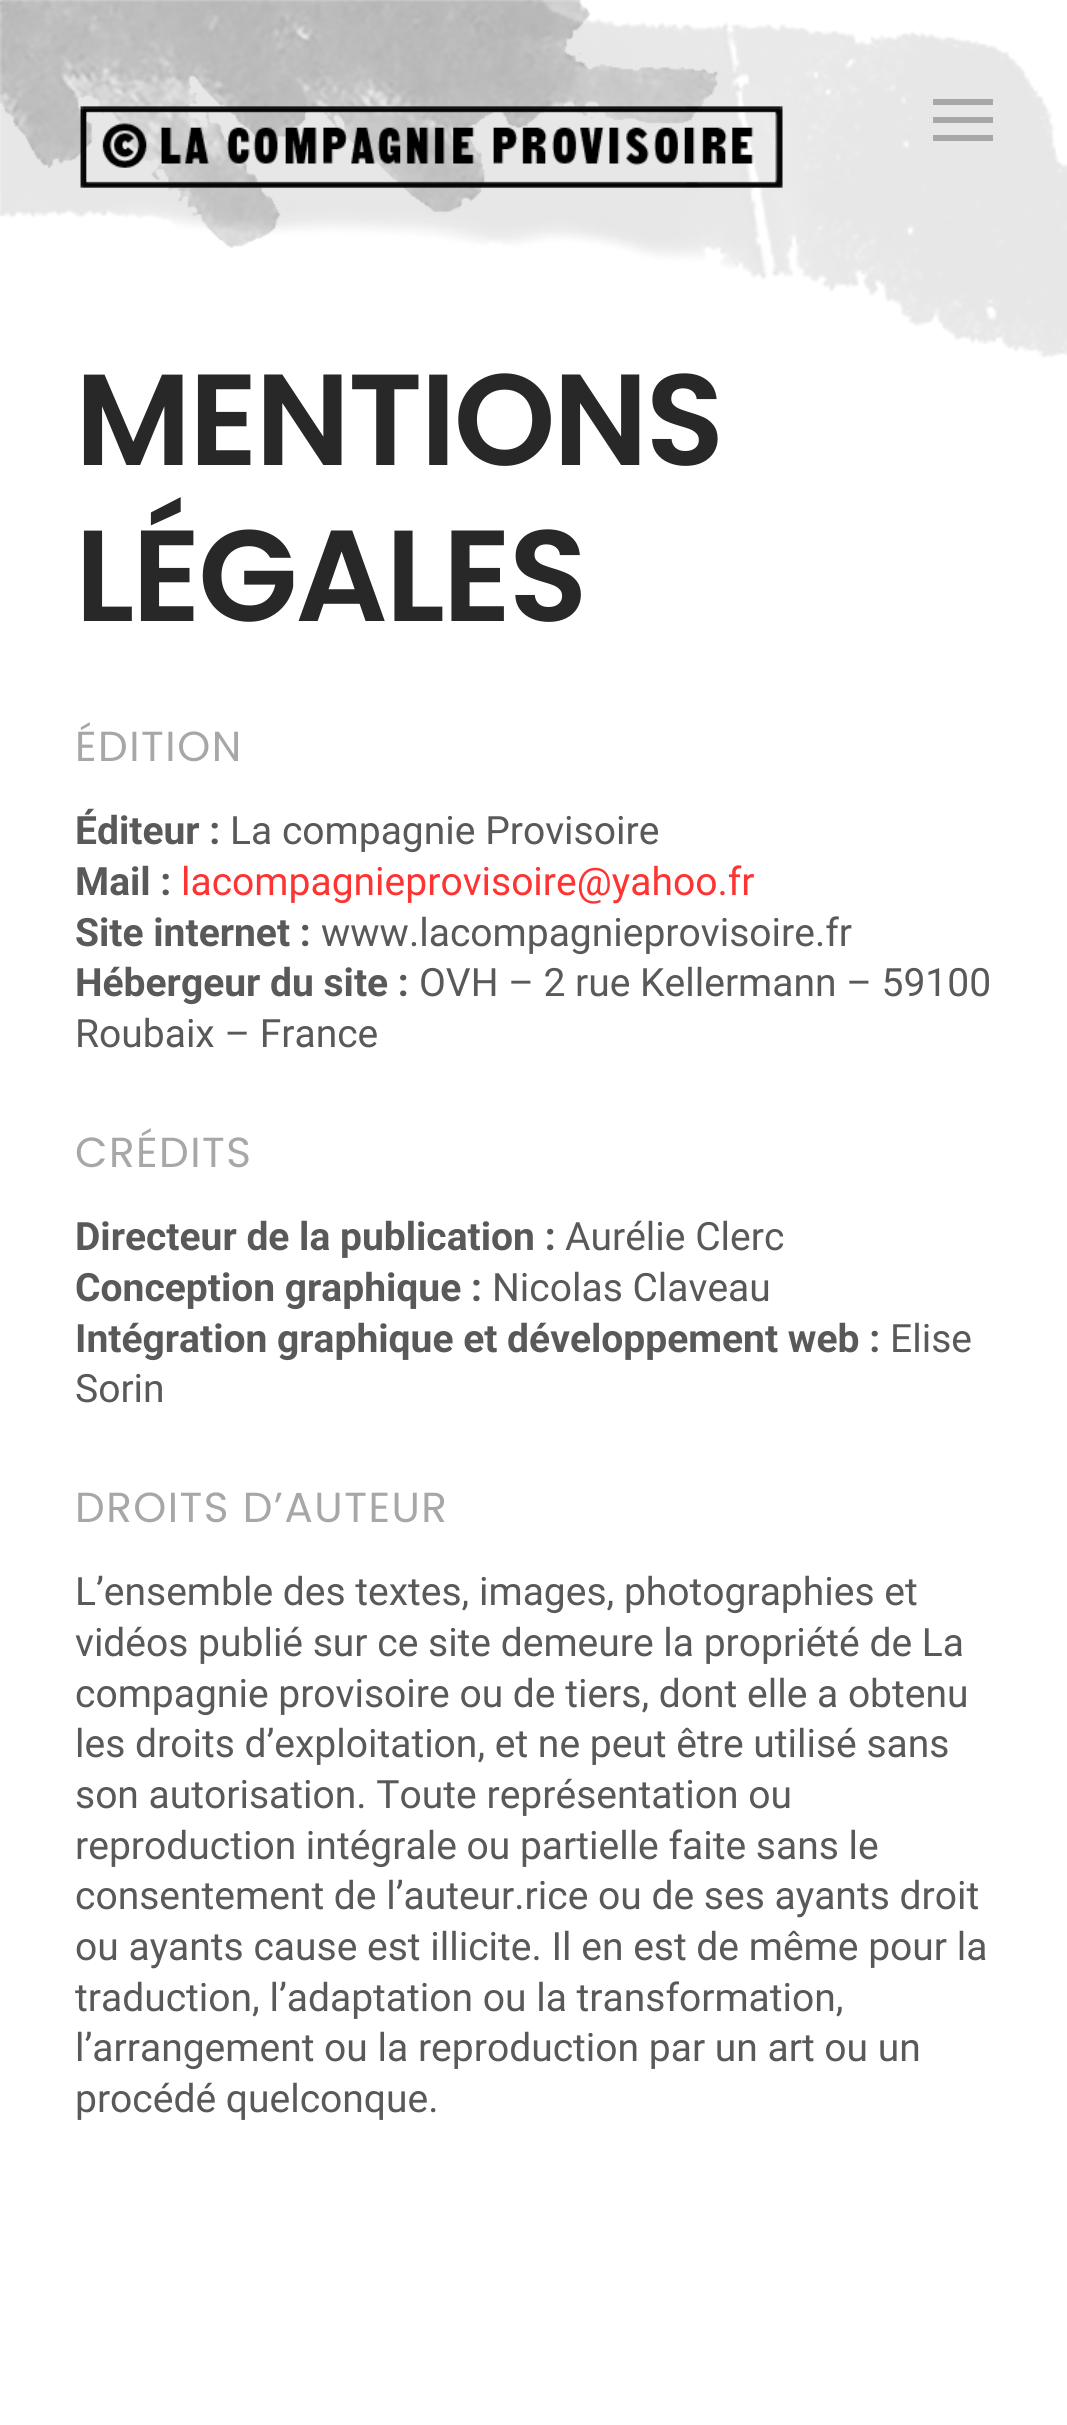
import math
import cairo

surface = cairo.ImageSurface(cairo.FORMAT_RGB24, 1067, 2425)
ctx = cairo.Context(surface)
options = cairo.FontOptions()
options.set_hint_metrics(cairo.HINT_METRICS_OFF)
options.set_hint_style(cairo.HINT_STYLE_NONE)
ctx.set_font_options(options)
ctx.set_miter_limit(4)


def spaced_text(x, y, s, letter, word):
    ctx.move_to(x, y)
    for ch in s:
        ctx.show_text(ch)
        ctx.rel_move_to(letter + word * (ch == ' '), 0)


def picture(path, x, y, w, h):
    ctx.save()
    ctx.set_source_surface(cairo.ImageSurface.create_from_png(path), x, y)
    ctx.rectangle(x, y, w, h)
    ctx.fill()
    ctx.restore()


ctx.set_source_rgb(1, 1, 1)
ctx.paint()
picture("img1.png", 0, 0, 1067, 358)
picture("img2.png", 80, 106, 703, 82)
ctx.set_source_rgb(0.655, 0.655, 0.655)
ctx.rectangle(933, 99, 60, 6)
ctx.fill()
ctx.rectangle(933, 135, 60, 6)
ctx.fill()
ctx.rectangle(933, 117, 60, 6)
ctx.fill()
ctx.select_font_face("Poppins SemiBold")
ctx.set_font_size(129.5)
ctx.set_source_rgb(0.157, 0.157, 0.157)
spaced_text(75, 465, "MENTIONS", -2.5, 0)
spaced_text(75, 621, "LÉGALES", -2.5, 0)
ctx.select_font_face("Poppins")
ctx.set_font_size(42)
ctx.set_source_rgb(0.655, 0.655, 0.655)
spaced_text(75, 761, "ÉDITION", 1.5, 0)
ctx.select_font_face("Roboto", cairo.FONT_SLANT_NORMAL, cairo.FONT_WEIGHT_BOLD)
ctx.set_font_size(39)
ctx.set_source_rgb(0.349, 0.349, 0.349)
ctx.move_to(75, 844)
ctx.show_text("Éditeur :")
ctx.select_font_face("Roboto")
ctx.move_to(230, 844)
ctx.show_text("La compagnie Provisoire")
ctx.select_font_face("Roboto", cairo.FONT_SLANT_NORMAL, cairo.FONT_WEIGHT_BOLD)
ctx.move_to(75, 895)
ctx.show_text("Mail :")
ctx.select_font_face("Roboto")
ctx.set_source_rgb(0.996, 0.204, 0.196)
ctx.move_to(181, 895)
ctx.show_text("lacompagnieprovisoire@yahoo.fr")
ctx.select_font_face("Roboto", cairo.FONT_SLANT_NORMAL, cairo.FONT_WEIGHT_BOLD)
ctx.set_source_rgb(0.349, 0.349, 0.349)
ctx.move_to(75, 946)
ctx.show_text("Site internet :")
ctx.select_font_face("Roboto")
ctx.move_to(321, 946)
ctx.show_text("www.lacompagnieprovisoire.fr")
ctx.select_font_face("Roboto", cairo.FONT_SLANT_NORMAL, cairo.FONT_WEIGHT_BOLD)
ctx.move_to(75, 996)
ctx.show_text("Hébergeur du site :")
ctx.select_font_face("Roboto")
ctx.move_to(419, 996)
ctx.show_text("OVH – 2 rue Kellermann – 59100")
ctx.move_to(75, 1047)
ctx.show_text("Roubaix – France")
ctx.select_font_face("Poppins")
ctx.set_font_size(42)
ctx.set_source_rgb(0.655, 0.655, 0.655)
spaced_text(75, 1167, "CRÉDITS", 1.5, 0)
ctx.select_font_face("Roboto", cairo.FONT_SLANT_NORMAL, cairo.FONT_WEIGHT_BOLD)
ctx.set_font_size(39)
ctx.set_source_rgb(0.349, 0.349, 0.349)
ctx.move_to(75, 1250)
ctx.show_text("Directeur de la publication :")
ctx.select_font_face("Roboto")
ctx.move_to(565, 1250)
ctx.show_text("Aurélie Clerc")
ctx.select_font_face("Roboto", cairo.FONT_SLANT_NORMAL, cairo.FONT_WEIGHT_BOLD)
ctx.move_to(75, 1301)
ctx.show_text("Conception graphique :")
ctx.select_font_face("Roboto")
ctx.move_to(492, 1301)
ctx.show_text("Nicolas Claveau")
ctx.select_font_face("Roboto", cairo.FONT_SLANT_NORMAL, cairo.FONT_WEIGHT_BOLD)
ctx.move_to(75, 1352)
ctx.show_text("Intégration graphique et développement web :")
ctx.select_font_face("Roboto")
ctx.move_to(890, 1352)
ctx.show_text("Elise")
ctx.move_to(75, 1402)
ctx.show_text("Sorin")
ctx.select_font_face("Poppins")
ctx.set_font_size(42)
ctx.set_source_rgb(0.655, 0.655, 0.655)
spaced_text(75, 1522, "DROITS D’AUTEUR", 1.5, 0)
ctx.select_font_face("Roboto")
ctx.set_font_size(39)
ctx.set_source_rgb(0.349, 0.349, 0.349)
ctx.move_to(75, 1605)
ctx.show_text("L’ensemble des textes, images, photographies et")
ctx.move_to(75, 1656)
ctx.show_text("vidéos publié sur ce site demeure la propriété de La")
ctx.move_to(75, 1707)
ctx.show_text("compagnie provisoire ou de tiers, dont elle a obtenu")
ctx.move_to(75, 1757)
ctx.show_text("les droits d’exploitation, et ne peut être utilisé sans")
ctx.move_to(75, 1808)
ctx.show_text("son autorisation. Toute représentation ou")
ctx.move_to(75, 1859)
ctx.show_text("reproduction intégrale ou partielle faite sans le")
ctx.move_to(75, 1909)
ctx.show_text("consentement de l’auteur.rice ou de ses ayants droit")
ctx.move_to(75, 1960)
ctx.show_text("ou ayants cause est illicite. Il en est de même pour la")
ctx.move_to(75, 2011)
ctx.show_text("traduction, l’adaptation ou la transformation,")
ctx.move_to(75, 2061)
ctx.show_text("l’arrangement ou la reproduction par un art ou un")
ctx.move_to(75, 2112)
ctx.show_text("procédé quelconque.")
surface.write_to_png("page.png")
